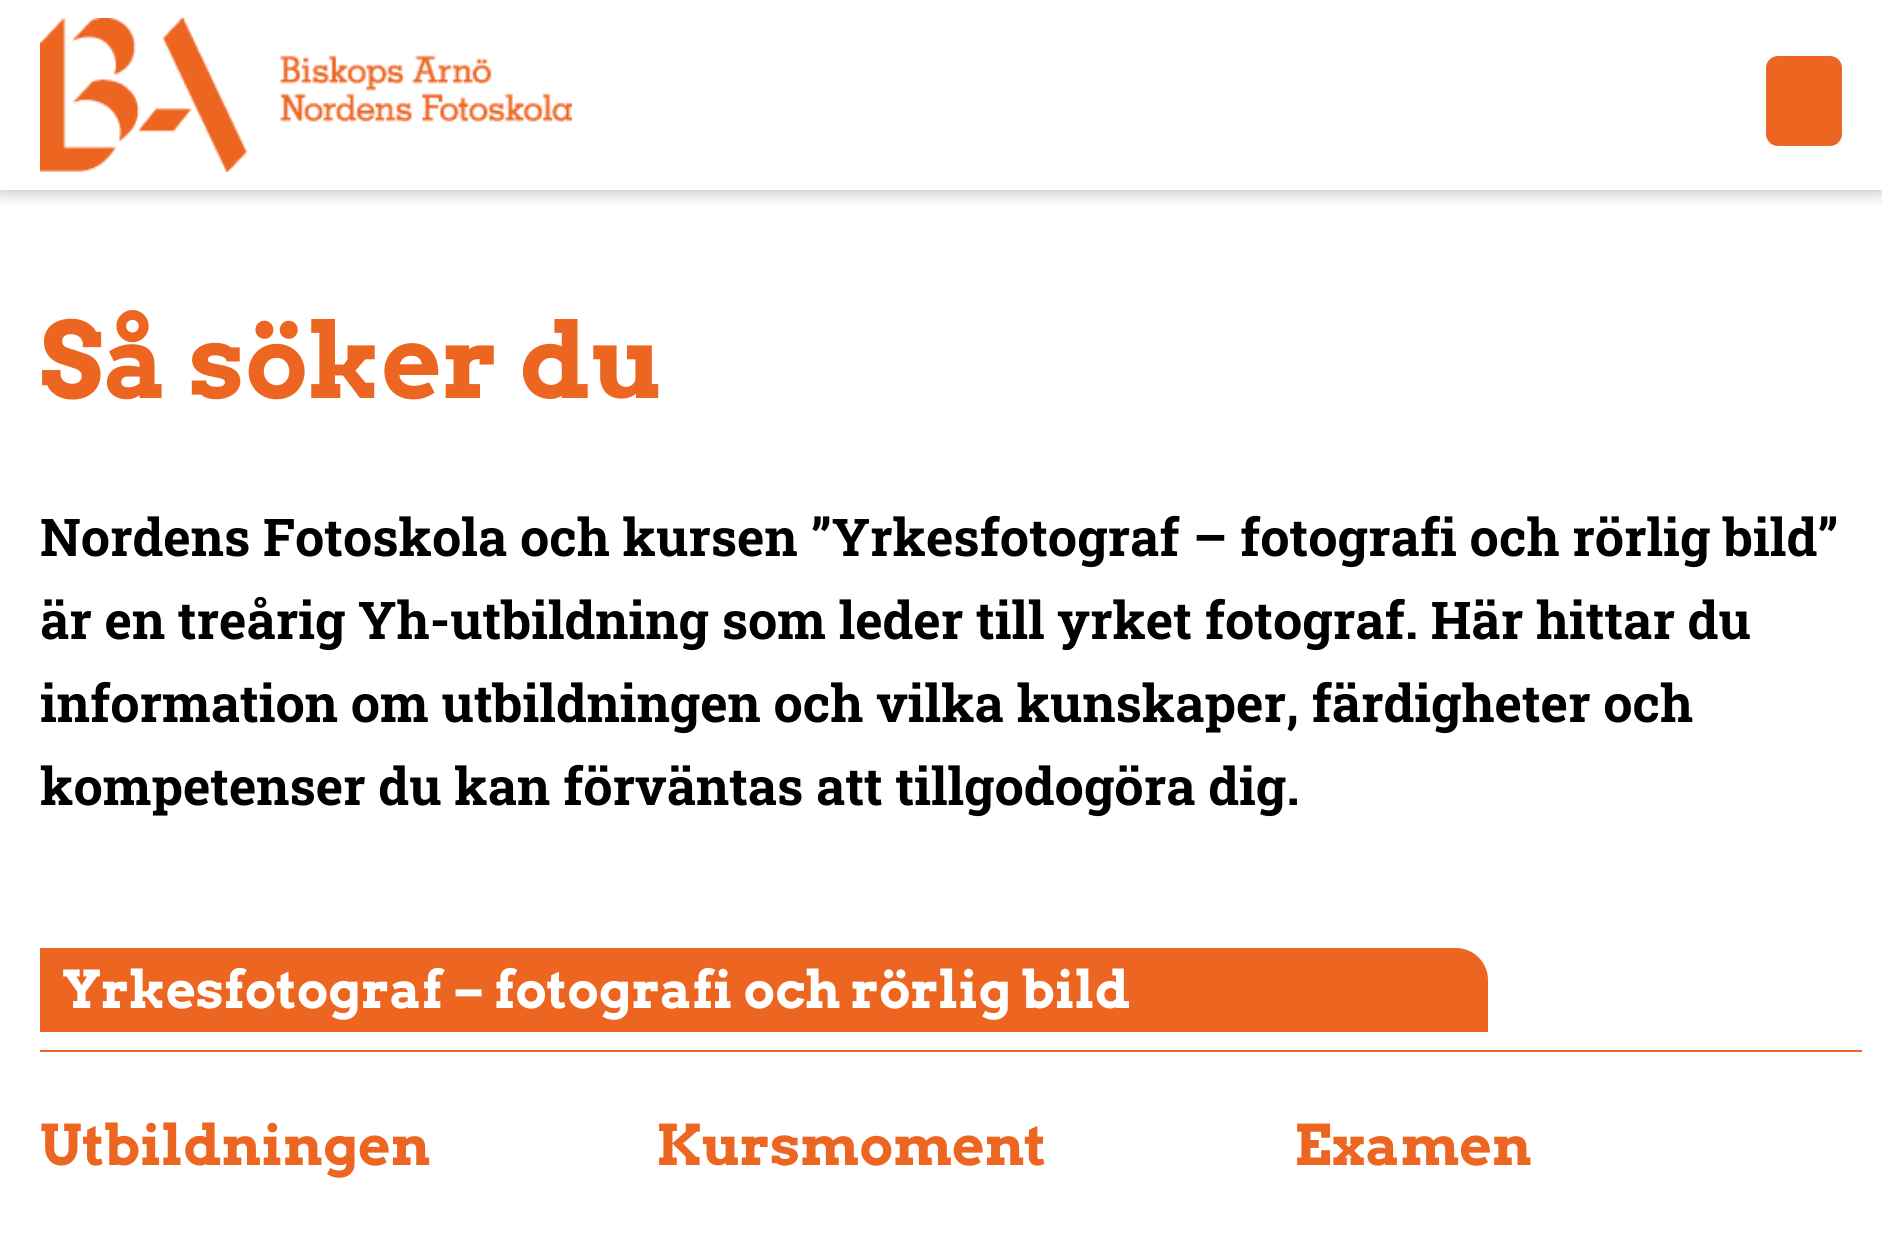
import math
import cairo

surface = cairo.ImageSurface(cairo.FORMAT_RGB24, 1882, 1234)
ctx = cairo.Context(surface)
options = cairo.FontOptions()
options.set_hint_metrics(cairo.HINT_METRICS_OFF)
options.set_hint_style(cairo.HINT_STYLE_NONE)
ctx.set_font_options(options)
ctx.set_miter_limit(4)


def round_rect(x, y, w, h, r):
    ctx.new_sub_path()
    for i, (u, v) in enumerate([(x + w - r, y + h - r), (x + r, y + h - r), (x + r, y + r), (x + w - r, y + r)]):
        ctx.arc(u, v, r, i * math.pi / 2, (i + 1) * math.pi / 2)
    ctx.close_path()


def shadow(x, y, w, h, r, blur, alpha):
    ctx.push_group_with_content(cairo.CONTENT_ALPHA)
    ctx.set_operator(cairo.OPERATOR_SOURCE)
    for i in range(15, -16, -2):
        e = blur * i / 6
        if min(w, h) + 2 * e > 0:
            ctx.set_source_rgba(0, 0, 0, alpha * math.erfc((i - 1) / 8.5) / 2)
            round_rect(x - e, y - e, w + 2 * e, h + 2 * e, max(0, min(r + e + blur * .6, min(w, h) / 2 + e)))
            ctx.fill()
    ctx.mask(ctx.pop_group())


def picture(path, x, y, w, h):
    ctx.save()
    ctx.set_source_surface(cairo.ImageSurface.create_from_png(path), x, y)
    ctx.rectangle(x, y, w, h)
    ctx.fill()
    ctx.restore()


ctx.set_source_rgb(1, 1, 1)
ctx.paint()
ctx.save()
ctx.rectangle(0, 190, 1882, 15)
ctx.clip()
ctx.set_source_rgb(0, 0, 0)
shadow(0, 0, 1882, 190, 0, 10, 0.3)
ctx.restore()
picture("img1.png", 40, 18, 532, 154)
ctx.set_source_rgb(0.925, 0.4, 0.133)
round_rect(1766, 56, 76, 90, 12)
ctx.fill()
ctx.select_font_face("Arvo", cairo.FONT_SLANT_NORMAL, cairo.FONT_WEIGHT_BOLD)
ctx.set_font_size(104)
ctx.move_to(40, 398)
ctx.show_text("Så söker du")
ctx.select_font_face("Roboto Slab", cairo.FONT_SLANT_NORMAL, cairo.FONT_WEIGHT_BOLD)
ctx.set_font_size(52)
ctx.set_source_rgb(0, 0, 0)
ctx.move_to(40, 556)
ctx.show_text("Nordens Fotoskola och kursen ”Yrkesfotograf – fotografi och rörlig bild”")
ctx.move_to(40, 639)
ctx.show_text("är en treårig Yh-utbildning som leder till yrket fotograf. Här hittar du")
ctx.move_to(40, 722)
ctx.show_text("information om utbildningen och vilka kunskaper, färdigheter och")
ctx.move_to(40, 805)
ctx.show_text("kompetenser du kan förväntas att tillgodogöra dig.")
ctx.set_source_rgb(0.925, 0.4, 0.133)
ctx.new_path()
ctx.move_to(41, 949)
ctx.line_to(1456, 949)
ctx.curve_to(1473, 949, 1487, 963, 1487, 980)
ctx.line_to(1487, 1031)
ctx.line_to(41, 1031)
ctx.close_path()
ctx.fill_preserve()
ctx.stroke()
ctx.select_font_face("Arvo", cairo.FONT_SLANT_NORMAL, cairo.FONT_WEIGHT_BOLD)
ctx.set_source_rgb(1, 1, 1)
ctx.move_to(62, 1008)
ctx.show_text("Yrkesfotograf – fotografi och rörlig bild")
ctx.set_source_rgb(0.925, 0.4, 0.133)
ctx.rectangle(40, 1050, 1822, 2)
ctx.fill()
ctx.set_font_size(56)
ctx.move_to(40, 1165)
ctx.show_text("Utbildningen")
ctx.move_to(656, 1165)
ctx.show_text("Kursmoment")
ctx.move_to(1294, 1165)
ctx.show_text("Examen")
surface.write_to_png("page.png")
